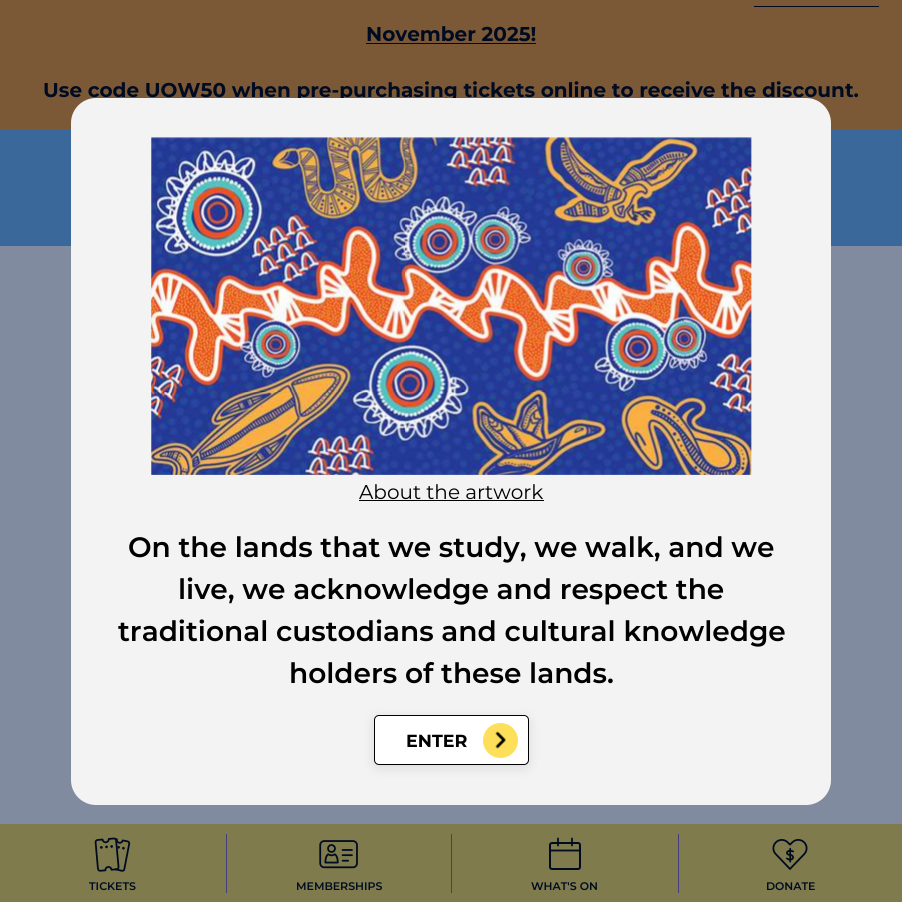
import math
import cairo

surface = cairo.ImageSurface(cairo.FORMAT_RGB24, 902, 902)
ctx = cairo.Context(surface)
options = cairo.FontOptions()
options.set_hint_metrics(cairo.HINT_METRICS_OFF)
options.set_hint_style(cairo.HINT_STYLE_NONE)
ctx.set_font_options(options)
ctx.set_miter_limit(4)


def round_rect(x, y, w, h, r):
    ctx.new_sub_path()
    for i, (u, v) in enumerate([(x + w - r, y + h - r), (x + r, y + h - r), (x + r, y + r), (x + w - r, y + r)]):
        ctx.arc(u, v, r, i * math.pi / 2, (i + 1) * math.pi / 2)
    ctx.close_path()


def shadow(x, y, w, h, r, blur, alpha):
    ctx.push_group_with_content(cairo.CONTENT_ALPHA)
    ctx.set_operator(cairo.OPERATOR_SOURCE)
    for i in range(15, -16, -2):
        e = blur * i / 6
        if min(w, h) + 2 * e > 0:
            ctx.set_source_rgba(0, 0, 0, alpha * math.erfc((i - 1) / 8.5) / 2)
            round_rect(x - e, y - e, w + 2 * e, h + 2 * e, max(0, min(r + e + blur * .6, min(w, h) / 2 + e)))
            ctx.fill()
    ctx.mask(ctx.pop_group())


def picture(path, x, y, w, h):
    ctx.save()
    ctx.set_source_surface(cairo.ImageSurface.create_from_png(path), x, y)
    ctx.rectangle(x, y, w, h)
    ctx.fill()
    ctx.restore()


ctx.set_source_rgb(0.502, 0.545, 0.627)
ctx.paint()
ctx.set_source_rgb(0.486, 0.349, 0.212)
ctx.rectangle(0, 0, 902, 129)
ctx.fill()
ctx.select_font_face("Montserrat", cairo.FONT_SLANT_NORMAL, cairo.FONT_WEIGHT_BOLD)
ctx.set_font_size(20)
ctx.set_source_rgb(0, 0.043, 0.129)
ctx.move_to(366, 41)
ctx.show_text("November 2025!")
ctx.rectangle(754, 6, 125, 1)
ctx.fill()
ctx.rectangle(366, 43, 170, 1)
ctx.fill()
ctx.move_to(43, 97)
ctx.show_text("Use code UOW50 when pre-purchasing tickets online to receive the discount.")
ctx.set_source_rgb(0.227, 0.408, 0.604)
ctx.rectangle(0, 129, 902, 117)
ctx.fill()
ctx.set_source_rgb(0.953, 0.953, 0.953)
round_rect(71, 98, 760, 707, 25)
ctx.fill()
picture("img1.png", 151, 137, 601, 338)
ctx.select_font_face("Montserrat")
ctx.set_source_rgb(0, 0, 0)
ctx.move_to(359, 499)
ctx.show_text("About the artwork")
ctx.rectangle(359, 500, 185, 1)
ctx.fill()
ctx.select_font_face("Montserrat SemiBold")
ctx.set_font_size(28)
ctx.move_to(128, 557)
ctx.show_text("On the lands that we study, we walk, and we")
ctx.move_to(178, 599)
ctx.show_text("live, we acknowledge and respect the")
ctx.move_to(118, 641)
ctx.show_text("traditional custodians and cultural knowledge")
ctx.move_to(289, 683)
ctx.show_text("holders of these lands.")
ctx.set_source_rgb(0, 0, 0)
shadow(374, 718, 155, 50, 5, 6, 0.1)
ctx.set_source_rgb(1, 1, 1)
round_rect(374.5, 715.5, 154, 49, 4.5)
ctx.fill_preserve()
ctx.set_source_rgb(0, 0, 0)
ctx.set_line_width(1)
ctx.stroke()
ctx.set_source_rgb(0.996, 0.875, 0.349)
ctx.arc(500.5, 740.5, 17.5, 0, 2 * math.pi)
ctx.fill()
ctx.select_font_face("Montserrat", cairo.FONT_SLANT_NORMAL, cairo.FONT_WEIGHT_BOLD)
ctx.set_font_size(17.5)
ctx.set_source_rgb(0, 0, 0)
ctx.move_to(406, 747)
ctx.show_text("ENTER")
picture("img2.png", 495, 731, 11, 18)
ctx.set_source_rgb(0.498, 0.482, 0.302)
ctx.rectangle(0, 824, 902, 78)
ctx.fill()
picture("img3.png", 94, 837, 37, 35)
ctx.select_font_face("Montserrat SemiBold")
ctx.set_font_size(11)
ctx.set_source_rgb(0, 0.043, 0.129)
ctx.move_to(89, 890)
ctx.show_text("TICKETS")
ctx.set_source_rgb(0.259, 0.247, 0.49)
ctx.rectangle(226, 834, 1, 59)
ctx.fill()
picture("img4.png", 319, 840, 39, 29)
ctx.set_source_rgb(0, 0.043, 0.129)
ctx.move_to(296, 890)
ctx.show_text("MEMBERSHIPS")
ctx.set_source_rgb(0.259, 0.247, 0.49)
ctx.rectangle(451, 834, 1, 59)
ctx.fill()
round_rect(550, 843, 30, 26, 2)
ctx.set_source_rgb(0, 0.043, 0.129)
ctx.set_line_width(2)
ctx.stroke()
ctx.new_path()
ctx.move_to(550, 850.5)
ctx.line_to(580, 850.5)
ctx.move_to(558, 845.5)
ctx.line_to(558, 838.5)
ctx.move_to(572, 845.5)
ctx.line_to(572, 838.5)
ctx.set_line_width(1.8)
ctx.set_line_cap(cairo.LINE_CAP_ROUND)
ctx.set_line_join(cairo.LINE_JOIN_ROUND)
ctx.stroke()
ctx.move_to(531, 890)
ctx.show_text("WHAT'S ON")
ctx.set_source_rgb(0.259, 0.247, 0.49)
ctx.rectangle(678, 834, 1, 59)
ctx.fill()
picture("img5.png", 772, 839, 36, 31)
ctx.set_source_rgb(0, 0.043, 0.129)
ctx.move_to(766, 890)
ctx.show_text("DONATE")
surface.write_to_png("page.png")
